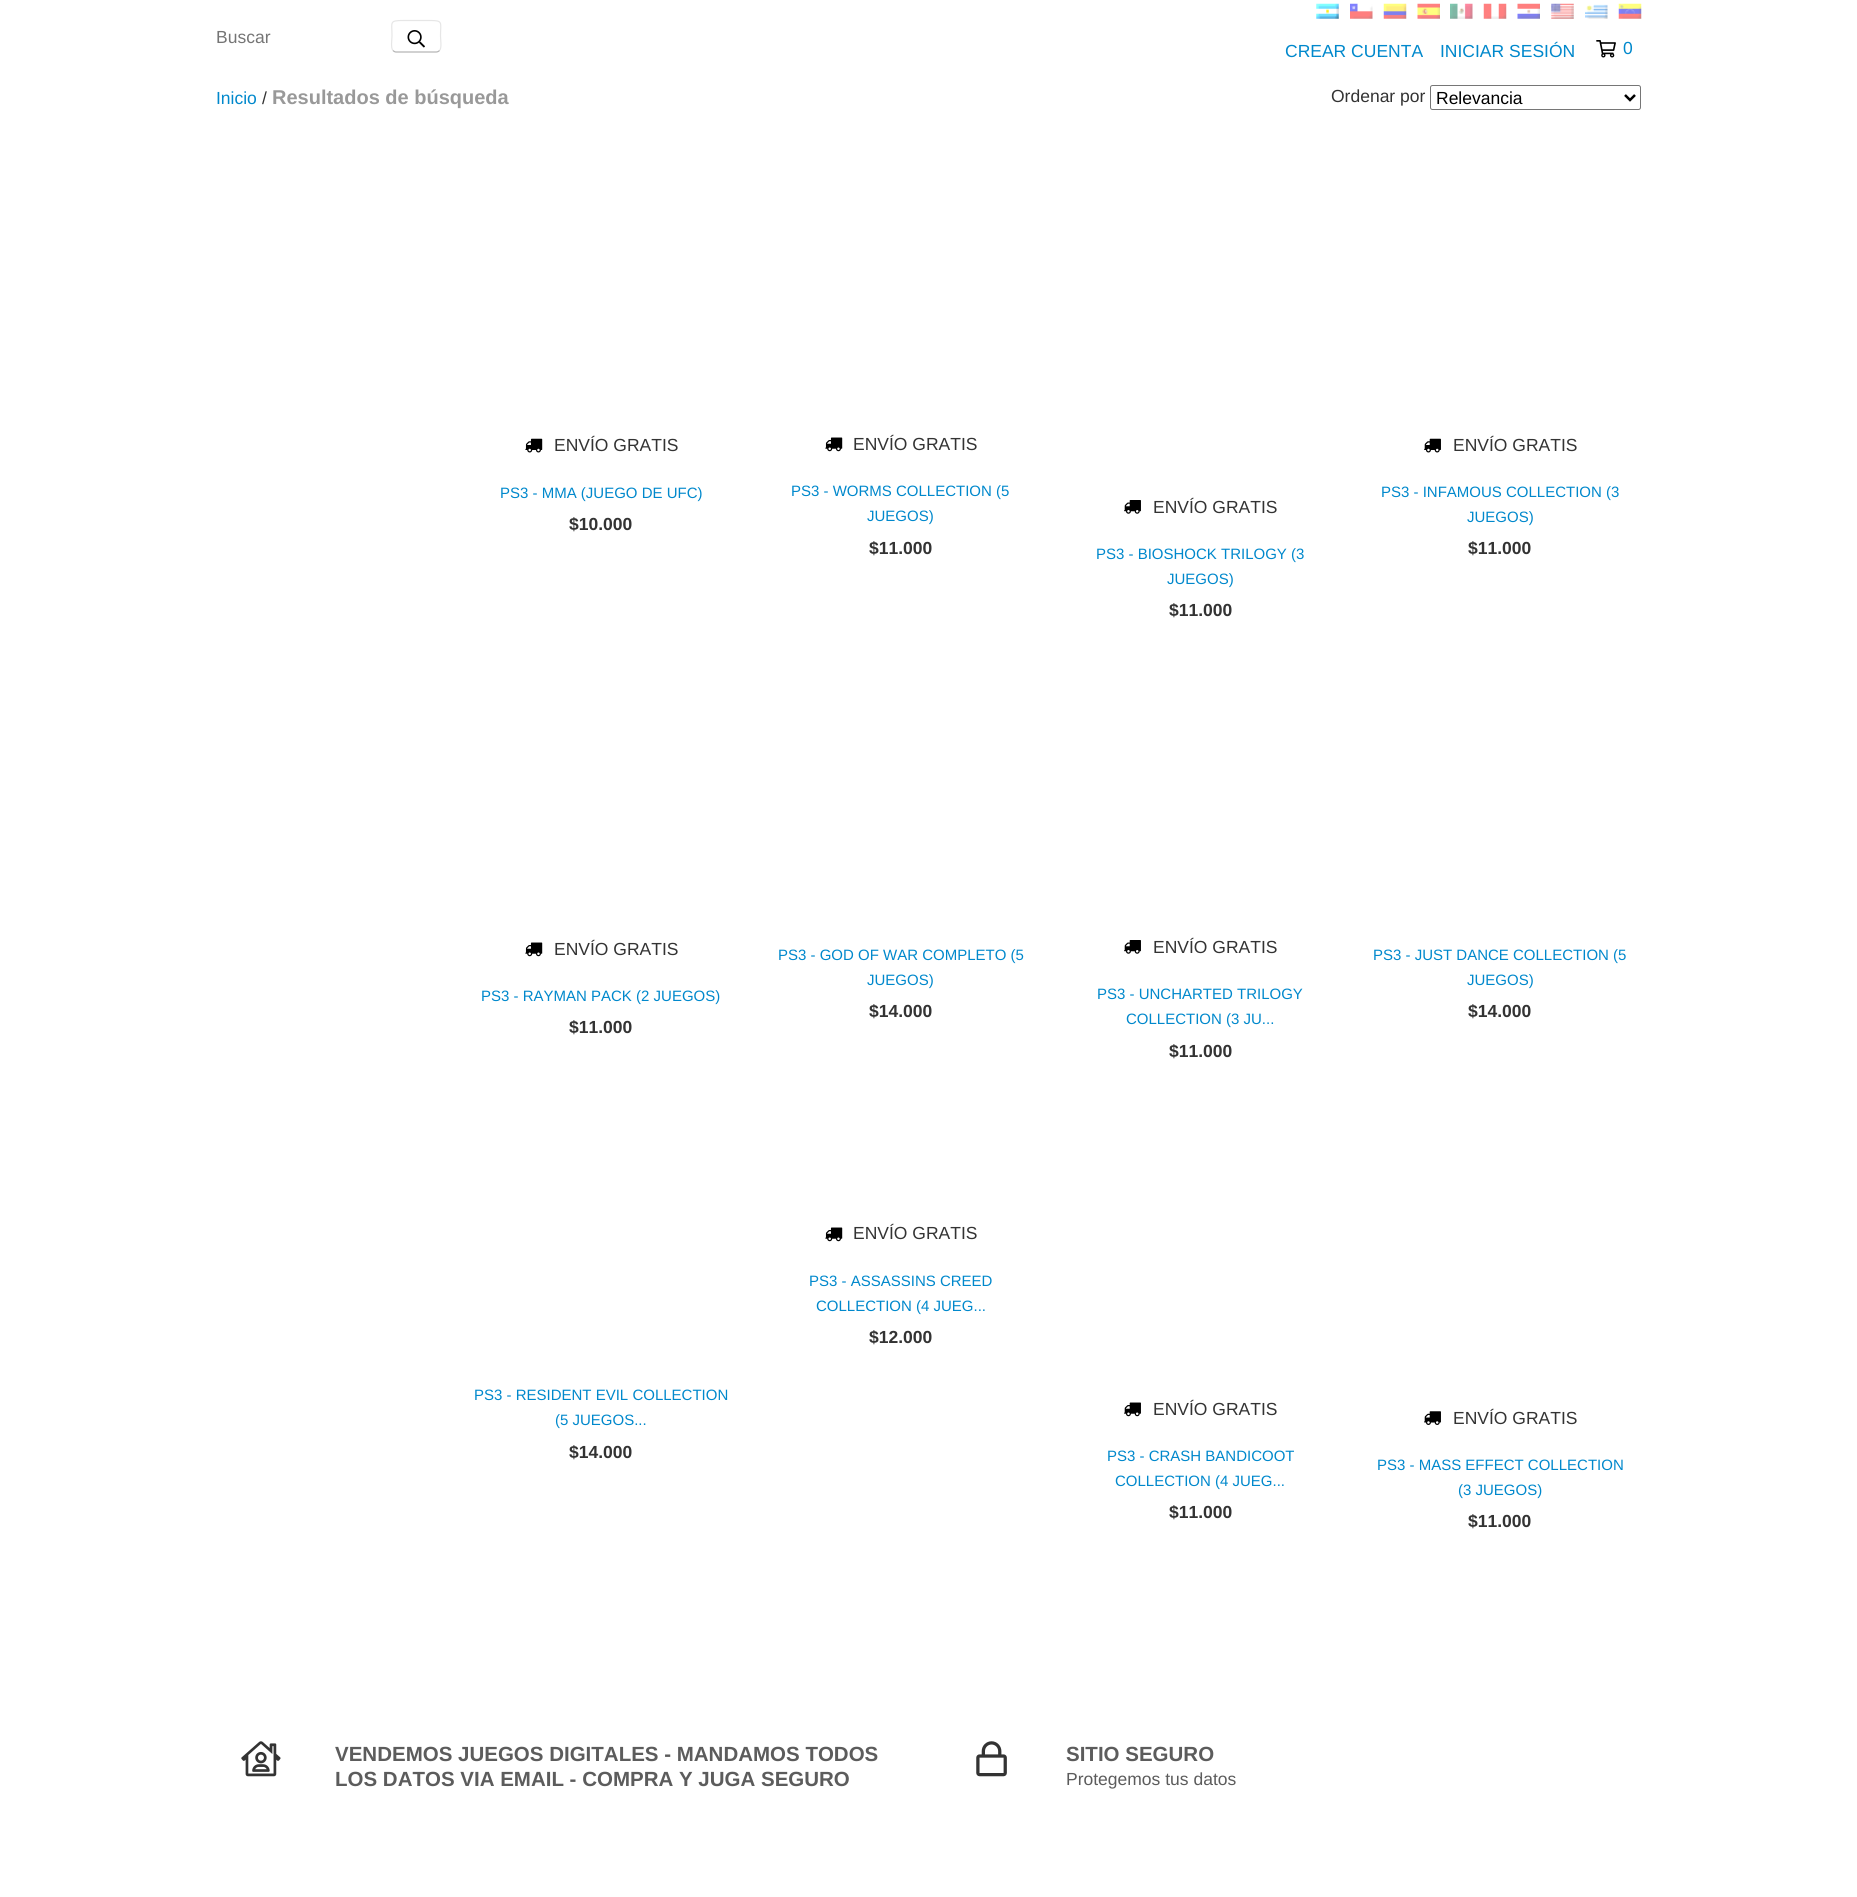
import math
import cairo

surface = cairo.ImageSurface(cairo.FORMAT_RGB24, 1857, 1897)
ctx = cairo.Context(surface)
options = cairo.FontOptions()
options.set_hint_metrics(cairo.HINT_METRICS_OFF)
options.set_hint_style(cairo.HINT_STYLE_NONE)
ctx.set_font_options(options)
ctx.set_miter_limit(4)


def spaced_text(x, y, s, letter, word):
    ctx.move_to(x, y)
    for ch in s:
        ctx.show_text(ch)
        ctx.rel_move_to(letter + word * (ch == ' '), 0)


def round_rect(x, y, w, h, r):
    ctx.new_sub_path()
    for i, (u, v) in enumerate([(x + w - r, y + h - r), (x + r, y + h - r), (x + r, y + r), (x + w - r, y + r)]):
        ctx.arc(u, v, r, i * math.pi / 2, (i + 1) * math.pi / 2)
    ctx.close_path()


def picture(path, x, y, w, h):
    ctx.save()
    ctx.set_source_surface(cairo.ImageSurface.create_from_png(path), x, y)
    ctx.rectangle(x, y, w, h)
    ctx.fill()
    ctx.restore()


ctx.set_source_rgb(1, 1, 1)
ctx.paint()
ctx.select_font_face("Liberation Sans")
ctx.set_font_size(17.5)
ctx.set_source_rgb(0.459, 0.459, 0.459)
ctx.move_to(216, 43)
ctx.show_text("Buscar")
ctx.new_path()
ctx.move_to(439.5, 50.5)
ctx.curve_to(438.5, 51.5, 437.5, 52, 436, 52)
ctx.line_to(396, 52)
ctx.curve_to(395, 52, 394, 51.5, 393, 50.5)
ctx.set_source_rgb(0.702, 0.702, 0.702)
ctx.set_line_width(1.2)
ctx.stroke()
ctx.new_path()
ctx.move_to(393, 50.5)
ctx.curve_to(390.5, 48, 392, 39.5, 392, 36)
ctx.curve_to(392, 22, 389, 20.5, 403, 20.5)
ctx.line_to(429.5, 20.5)
ctx.curve_to(443.5, 20.5, 440.5, 22, 440.5, 36)
ctx.curve_to(440.5, 39.5, 442, 48, 439.5, 50.5)
ctx.set_source_rgba(0, 0, 0, 0.1)
ctx.stroke()
picture("img1.png", 407, 30, 18, 18)
picture("img2.png", 1316, 3, 23, 16)
picture("img3.png", 1350, 3, 23, 16)
picture("img4.png", 1383, 3, 24, 16)
picture("img5.png", 1417, 3, 23, 16)
picture("img6.png", 1450, 3, 23, 16)
picture("img7.png", 1483, 3, 24, 16)
picture("img8.png", 1517, 3, 23, 16)
picture("img9.png", 1551, 3, 23, 16)
picture("img10.png", 1585, 4, 23, 15)
picture("img11.png", 1618, 3, 24, 16)
ctx.set_source_rgb(0, 0.533, 0.8)
ctx.move_to(1285, 57)
ctx.show_text("CREAR CUENTA")
ctx.move_to(1440, 57)
ctx.show_text("INICIAR SESIÓN")
picture("img12.png", 1596, 40, 20, 18)
spaced_text(1623, 54, "0", 1, 0)
ctx.move_to(216, 104)
ctx.show_text("Inicio")
ctx.set_source_rgb(0.2, 0.2, 0.2)
ctx.move_to(262, 104)
ctx.show_text("/")
ctx.select_font_face("Liberation Sans", cairo.FONT_SLANT_NORMAL, cairo.FONT_WEIGHT_BOLD)
ctx.set_font_size(20)
ctx.set_source_rgb(0.6, 0.6, 0.6)
ctx.move_to(272, 104)
ctx.show_text("Resultados de búsqueda")
ctx.select_font_face("Liberation Sans")
ctx.set_font_size(17.5)
ctx.set_source_rgb(0.2, 0.2, 0.2)
ctx.move_to(1331, 102)
ctx.show_text("Ordenar por")
round_rect(1430.5, 85.5, 210, 24, 2)
ctx.set_source_rgb(0.463, 0.463, 0.463)
ctx.set_line_width(1)
ctx.stroke()
ctx.new_path()
ctx.move_to(1625, 95)
ctx.line_to(1630, 100)
ctx.line_to(1635, 95)
ctx.set_source_rgb(0, 0, 0)
ctx.set_line_width(2.5)
ctx.stroke()
ctx.move_to(1436, 104)
ctx.show_text("Relevancia")
picture("img13.png", 525, 438, 18, 15)
ctx.set_source_rgb(0.2, 0.2, 0.2)
ctx.move_to(554, 451)
ctx.show_text("ENVÍO GRATIS")
ctx.set_font_size(15)
ctx.set_source_rgb(0, 0.533, 0.8)
ctx.move_to(500, 498)
ctx.show_text("PS3 - MMA (JUEGO DE UFC)")
ctx.select_font_face("Liberation Sans", cairo.FONT_SLANT_NORMAL, cairo.FONT_WEIGHT_BOLD)
ctx.set_font_size(17.5)
ctx.set_source_rgb(0.2, 0.2, 0.2)
ctx.move_to(569, 530)
ctx.show_text("$10.000")
picture("img14.png", 825, 437, 18, 15)
ctx.select_font_face("Liberation Sans")
ctx.move_to(853, 450)
ctx.show_text("ENVÍO GRATIS")
ctx.set_font_size(15)
ctx.set_source_rgb(0, 0.533, 0.8)
ctx.move_to(791, 496)
ctx.show_text("PS3 - WORMS COLLECTION (5")
ctx.move_to(867, 521)
ctx.show_text("JUEGOS)")
ctx.select_font_face("Liberation Sans", cairo.FONT_SLANT_NORMAL, cairo.FONT_WEIGHT_BOLD)
ctx.set_font_size(17.5)
ctx.set_source_rgb(0.2, 0.2, 0.2)
ctx.move_to(869, 554)
ctx.show_text("$11.000")
picture("img15.png", 1124, 500, 17, 14)
ctx.select_font_face("Liberation Sans")
ctx.move_to(1153, 513)
ctx.show_text("ENVÍO GRATIS")
ctx.set_font_size(15)
ctx.set_source_rgb(0, 0.533, 0.8)
ctx.move_to(1096, 559)
ctx.show_text("PS3 - BIOSHOCK TRILOGY (3")
ctx.move_to(1167, 584)
ctx.show_text("JUEGOS)")
ctx.select_font_face("Liberation Sans", cairo.FONT_SLANT_NORMAL, cairo.FONT_WEIGHT_BOLD)
ctx.set_font_size(17.5)
ctx.set_source_rgb(0.2, 0.2, 0.2)
ctx.move_to(1169, 616)
ctx.show_text("$11.000")
picture("img16.png", 1424, 438, 17, 15)
ctx.select_font_face("Liberation Sans")
ctx.move_to(1453, 451)
ctx.show_text("ENVÍO GRATIS")
ctx.set_font_size(15)
ctx.set_source_rgb(0, 0.533, 0.8)
ctx.move_to(1381, 497)
ctx.show_text("PS3 - INFAMOUS COLLECTION (3")
ctx.move_to(1467, 522)
ctx.show_text("JUEGOS)")
ctx.select_font_face("Liberation Sans", cairo.FONT_SLANT_NORMAL, cairo.FONT_WEIGHT_BOLD)
ctx.set_font_size(17.5)
ctx.set_source_rgb(0.2, 0.2, 0.2)
ctx.move_to(1468, 554)
ctx.show_text("$11.000")
picture("img14.png", 525, 942, 18, 15)
ctx.select_font_face("Liberation Sans")
ctx.move_to(554, 955)
ctx.show_text("ENVÍO GRATIS")
ctx.set_font_size(15)
ctx.set_source_rgb(0, 0.533, 0.8)
ctx.move_to(481, 1001)
ctx.show_text("PS3 - RAYMAN PACK (2 JUEGOS)")
ctx.select_font_face("Liberation Sans", cairo.FONT_SLANT_NORMAL, cairo.FONT_WEIGHT_BOLD)
ctx.set_font_size(17.5)
ctx.set_source_rgb(0.2, 0.2, 0.2)
ctx.move_to(569, 1033)
ctx.show_text("$11.000")
ctx.select_font_face("Liberation Sans")
ctx.set_font_size(15)
ctx.set_source_rgb(0, 0.533, 0.8)
ctx.move_to(778, 960)
ctx.show_text("PS3 - GOD OF WAR COMPLETO (5")
ctx.move_to(867, 985)
ctx.show_text("JUEGOS)")
ctx.select_font_face("Liberation Sans", cairo.FONT_SLANT_NORMAL, cairo.FONT_WEIGHT_BOLD)
ctx.set_font_size(17.5)
ctx.set_source_rgb(0.2, 0.2, 0.2)
ctx.move_to(869, 1017)
ctx.show_text("$14.000")
picture("img15.png", 1124, 940, 17, 14)
ctx.select_font_face("Liberation Sans")
ctx.move_to(1153, 953)
ctx.show_text("ENVÍO GRATIS")
ctx.set_font_size(15)
ctx.set_source_rgb(0, 0.533, 0.8)
ctx.move_to(1097, 999)
ctx.show_text("PS3 - UNCHARTED TRILOGY")
ctx.move_to(1126, 1024)
ctx.show_text("COLLECTION (3 JU...")
ctx.select_font_face("Liberation Sans", cairo.FONT_SLANT_NORMAL, cairo.FONT_WEIGHT_BOLD)
ctx.set_font_size(17.5)
ctx.set_source_rgb(0.2, 0.2, 0.2)
ctx.move_to(1169, 1057)
ctx.show_text("$11.000")
ctx.select_font_face("Liberation Sans")
ctx.set_font_size(15)
ctx.set_source_rgb(0, 0.533, 0.8)
ctx.move_to(1373, 960)
ctx.show_text("PS3 - JUST DANCE COLLECTION (5")
ctx.move_to(1467, 985)
ctx.show_text("JUEGOS)")
ctx.select_font_face("Liberation Sans", cairo.FONT_SLANT_NORMAL, cairo.FONT_WEIGHT_BOLD)
ctx.set_font_size(17.5)
ctx.set_source_rgb(0.2, 0.2, 0.2)
ctx.move_to(1468, 1017)
ctx.show_text("$14.000")
picture("img14.png", 825, 1227, 18, 15)
ctx.select_font_face("Liberation Sans")
ctx.move_to(853, 1239)
ctx.show_text("ENVÍO GRATIS")
ctx.set_font_size(15)
ctx.set_source_rgb(0, 0.533, 0.8)
ctx.move_to(809, 1286)
ctx.show_text("PS3 - ASSASSINS CREED")
ctx.move_to(816, 1311)
ctx.show_text("COLLECTION (4 JUEG...")
ctx.select_font_face("Liberation Sans", cairo.FONT_SLANT_NORMAL, cairo.FONT_WEIGHT_BOLD)
ctx.set_font_size(17.5)
ctx.set_source_rgb(0.2, 0.2, 0.2)
ctx.move_to(869, 1343)
ctx.show_text("$12.000")
ctx.select_font_face("Liberation Sans")
ctx.set_font_size(15)
ctx.set_source_rgb(0, 0.533, 0.8)
ctx.move_to(474, 1400)
ctx.show_text("PS3 - RESIDENT EVIL COLLECTION")
ctx.move_to(555, 1425)
ctx.show_text("(5 JUEGOS...")
ctx.select_font_face("Liberation Sans", cairo.FONT_SLANT_NORMAL, cairo.FONT_WEIGHT_BOLD)
ctx.set_font_size(17.5)
ctx.set_source_rgb(0.2, 0.2, 0.2)
ctx.move_to(569, 1458)
ctx.show_text("$14.000")
picture("img17.png", 1124, 1402, 17, 15)
ctx.select_font_face("Liberation Sans")
ctx.move_to(1153, 1415)
ctx.show_text("ENVÍO GRATIS")
ctx.set_font_size(15)
ctx.set_source_rgb(0, 0.533, 0.8)
ctx.move_to(1107, 1461)
ctx.show_text("PS3 - CRASH BANDICOOT")
ctx.move_to(1115, 1486)
ctx.show_text("COLLECTION (4 JUEG...")
ctx.select_font_face("Liberation Sans", cairo.FONT_SLANT_NORMAL, cairo.FONT_WEIGHT_BOLD)
ctx.set_font_size(17.5)
ctx.set_source_rgb(0.2, 0.2, 0.2)
ctx.move_to(1169, 1518)
ctx.show_text("$11.000")
picture("img18.png", 1424, 1411, 17, 14)
ctx.select_font_face("Liberation Sans")
ctx.move_to(1453, 1424)
ctx.show_text("ENVÍO GRATIS")
ctx.set_font_size(15)
ctx.set_source_rgb(0, 0.533, 0.8)
ctx.move_to(1377, 1470)
ctx.show_text("PS3 - MASS EFFECT COLLECTION")
ctx.move_to(1458, 1495)
ctx.show_text("(3 JUEGOS)")
ctx.select_font_face("Liberation Sans", cairo.FONT_SLANT_NORMAL, cairo.FONT_WEIGHT_BOLD)
ctx.set_font_size(17.5)
ctx.set_source_rgb(0.2, 0.2, 0.2)
ctx.move_to(1468, 1527)
ctx.show_text("$11.000")
picture("img19.png", 241, 1741, 40, 36)
ctx.set_font_size(20.5)
ctx.set_source_rgb(0.361, 0.361, 0.361)
ctx.move_to(335, 1761)
ctx.show_text("VENDEMOS JUEGOS DIGITALES - MANDAMOS TODOS")
ctx.move_to(335, 1786)
ctx.show_text("LOS DATOS VIA EMAIL - COMPRA Y JUGA SEGURO")
picture("img20.png", 976, 1741, 31, 36)
ctx.move_to(1066, 1761)
ctx.show_text("SITIO SEGURO")
ctx.select_font_face("Liberation Sans")
ctx.set_font_size(17.5)
ctx.move_to(1066, 1785)
ctx.show_text("Protegemos tus datos")
surface.write_to_png("page.png")
